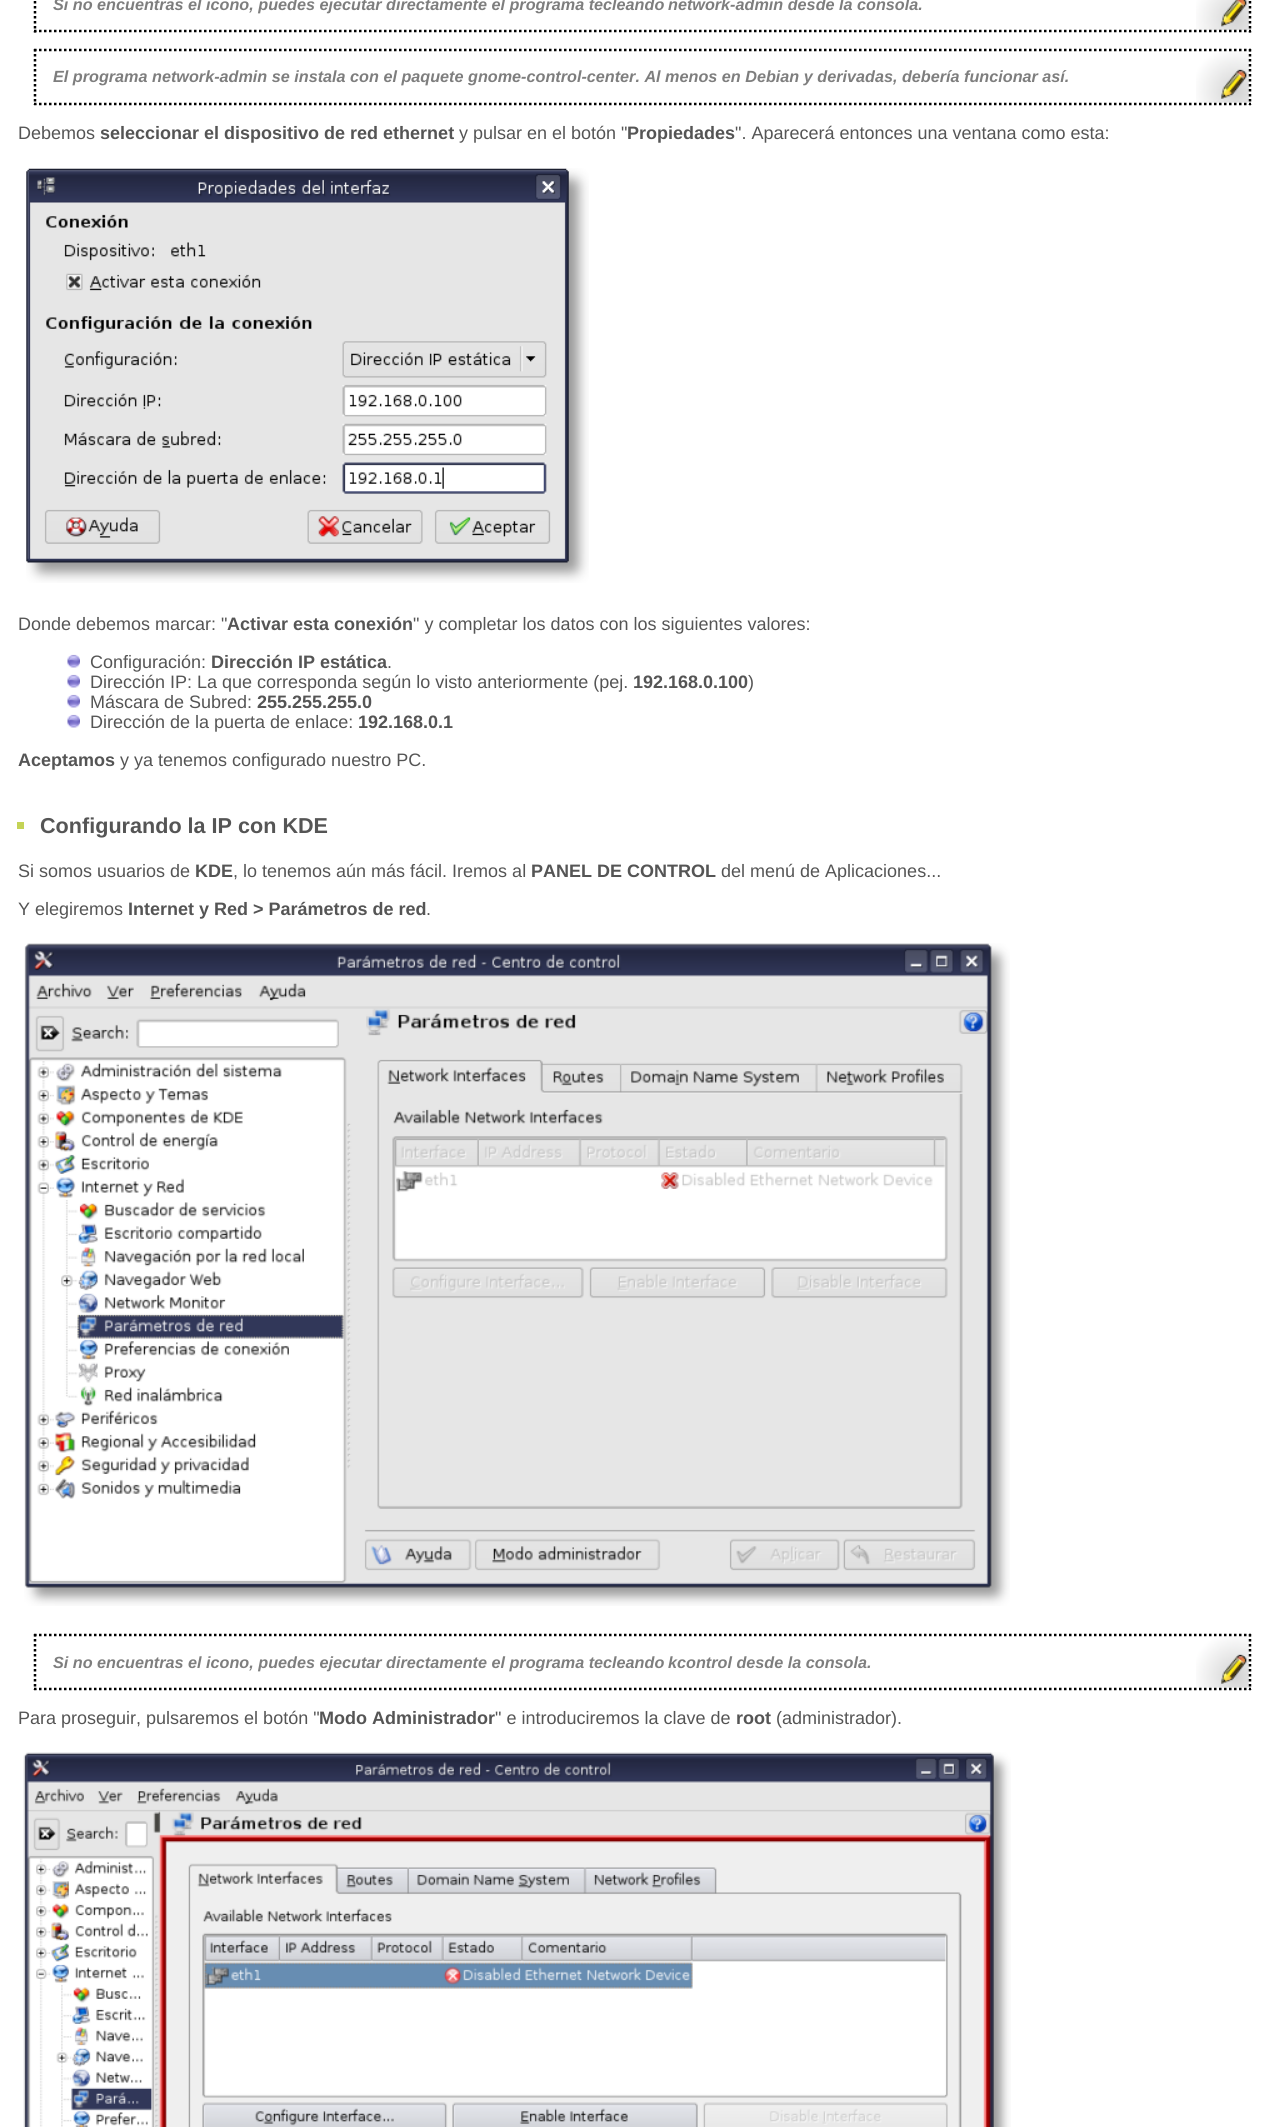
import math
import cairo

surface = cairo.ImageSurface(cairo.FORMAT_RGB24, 1284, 2127)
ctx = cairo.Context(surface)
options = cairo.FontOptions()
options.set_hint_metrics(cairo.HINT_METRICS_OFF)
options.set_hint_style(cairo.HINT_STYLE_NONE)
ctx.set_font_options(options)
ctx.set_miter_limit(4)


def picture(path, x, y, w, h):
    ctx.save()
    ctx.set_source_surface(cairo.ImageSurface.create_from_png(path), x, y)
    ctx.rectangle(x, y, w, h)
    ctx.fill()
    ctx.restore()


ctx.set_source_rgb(1, 1, 1)
ctx.paint()
picture("img1.png", 1196, 0, 53, 30)
ctx.new_path()
ctx.move_to(1250, -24)
ctx.line_to(1250, 32.5)
ctx.set_source_rgb(0, 0, 0)
ctx.set_line_width(2.5)
ctx.set_dash([2.5, 2.5])
ctx.stroke()
ctx.new_path()
ctx.move_to(34, 31)
ctx.line_to(1251, 31)
ctx.stroke()
ctx.new_path()
ctx.move_to(35, -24)
ctx.line_to(35, 32.5)
ctx.stroke()
ctx.select_font_face("Liberation Sans", cairo.FONT_SLANT_ITALIC, cairo.FONT_WEIGHT_BOLD)
ctx.set_font_size(16.2)
ctx.set_source_rgb(0.494, 0.494, 0.494)
ctx.move_to(53, 10)
ctx.show_text("Si no encuentras el icono, puedes ejecutar directamente el programa tecleando")
ctx.move_to(668, 10)
ctx.show_text("network-admin desde la consola.")
picture("img2.png", 1196, 51, 53, 52)
ctx.new_path()
ctx.move_to(34, 50)
ctx.line_to(1251, 50)
ctx.set_source_rgb(0, 0, 0)
ctx.stroke()
ctx.new_path()
ctx.move_to(1250, 49)
ctx.line_to(1250, 105)
ctx.stroke()
ctx.new_path()
ctx.move_to(34, 104)
ctx.line_to(1251, 104)
ctx.stroke()
ctx.new_path()
ctx.move_to(35, 49)
ctx.line_to(35, 105)
ctx.stroke()
ctx.set_source_rgb(0.494, 0.494, 0.494)
ctx.move_to(53, 82)
ctx.show_text("El programa network-admin se instala con el paquete gnome-control-center. Al menos en Debian y derivadas, debería funcionar así.")
ctx.select_font_face("Liberation Sans")
ctx.set_font_size(18)
ctx.set_source_rgb(0.333, 0.333, 0.333)
ctx.move_to(18, 139)
ctx.show_text("Debemos")
ctx.select_font_face("Liberation Sans", cairo.FONT_SLANT_NORMAL, cairo.FONT_WEIGHT_BOLD)
ctx.move_to(100, 139)
ctx.show_text("seleccionar el dispositivo de red ethernet")
ctx.select_font_face("Liberation Sans")
ctx.move_to(459, 139)
ctx.show_text("y pulsar en el botón \"")
ctx.select_font_face("Liberation Sans", cairo.FONT_SLANT_NORMAL, cairo.FONT_WEIGHT_BOLD)
ctx.move_to(627, 139)
ctx.show_text("Propiedades")
ctx.select_font_face("Liberation Sans")
ctx.move_to(735, 139)
ctx.show_text("\". Aparecerá entonces una ventana como esta:")
picture("img3.png", 26, 168, 563, 415)
ctx.move_to(18, 630)
ctx.show_text("Donde debemos marcar: \"")
ctx.select_font_face("Liberation Sans", cairo.FONT_SLANT_NORMAL, cairo.FONT_WEIGHT_BOLD)
ctx.move_to(227, 630)
ctx.show_text("Activar esta conexión")
ctx.select_font_face("Liberation Sans")
ctx.move_to(413, 630)
ctx.show_text("\" y completar los datos con los siguientes valores:")
picture("img4.png", 67, 654, 13, 14)
ctx.move_to(90, 668)
ctx.show_text("Configuración:")
ctx.select_font_face("Liberation Sans", cairo.FONT_SLANT_NORMAL, cairo.FONT_WEIGHT_BOLD)
ctx.move_to(211, 668)
ctx.show_text("Dirección IP estática")
ctx.select_font_face("Liberation Sans")
ctx.move_to(387, 668)
ctx.show_text(".")
picture("img4.png", 67, 674, 13, 14)
ctx.move_to(90, 688)
ctx.show_text("Dirección IP: La que corresponda según lo visto anteriormente (pej.")
ctx.select_font_face("Liberation Sans", cairo.FONT_SLANT_NORMAL, cairo.FONT_WEIGHT_BOLD)
ctx.move_to(633, 688)
ctx.show_text("192.168.0.100")
ctx.select_font_face("Liberation Sans")
ctx.move_to(748, 688)
ctx.show_text(")")
picture("img4.png", 67, 694, 13, 14)
ctx.move_to(90, 708)
ctx.show_text("Máscara de Subred:")
ctx.select_font_face("Liberation Sans", cairo.FONT_SLANT_NORMAL, cairo.FONT_WEIGHT_BOLD)
ctx.move_to(257, 708)
ctx.show_text("255.255.255.0")
picture("img4.png", 67, 714, 13, 14)
ctx.select_font_face("Liberation Sans")
ctx.move_to(90, 728)
ctx.show_text("Dirección de la puerta de enlace:")
ctx.select_font_face("Liberation Sans", cairo.FONT_SLANT_NORMAL, cairo.FONT_WEIGHT_BOLD)
ctx.move_to(358, 728)
ctx.show_text("192.168.0.1")
ctx.move_to(18, 766)
ctx.show_text("Aceptamos")
ctx.select_font_face("Liberation Sans")
ctx.move_to(120, 766)
ctx.show_text("y ya tenemos configurado nuestro PC.")
ctx.set_source_rgb(0.769, 0.827, 0.337)
ctx.rectangle(17, 822, 7, 7)
ctx.fill()
ctx.select_font_face("Liberation Sans", cairo.FONT_SLANT_NORMAL, cairo.FONT_WEIGHT_BOLD)
ctx.set_font_size(21.6)
ctx.set_source_rgb(0.333, 0.333, 0.333)
ctx.move_to(40, 833)
ctx.show_text("Configurando la IP con KDE")
ctx.select_font_face("Liberation Sans")
ctx.set_font_size(18)
ctx.move_to(18, 877)
ctx.show_text("Si somos usuarios de")
ctx.select_font_face("Liberation Sans", cairo.FONT_SLANT_NORMAL, cairo.FONT_WEIGHT_BOLD)
ctx.move_to(195, 877)
ctx.show_text("KDE")
ctx.select_font_face("Liberation Sans")
ctx.move_to(233, 877)
ctx.show_text(", lo tenemos aún más fácil. Iremos al")
ctx.select_font_face("Liberation Sans", cairo.FONT_SLANT_NORMAL, cairo.FONT_WEIGHT_BOLD)
ctx.move_to(531, 877)
ctx.show_text("PANEL DE CONTROL")
ctx.select_font_face("Liberation Sans")
ctx.move_to(721, 877)
ctx.show_text("del menú de Aplicaciones...")
ctx.move_to(18, 915)
ctx.show_text("Y elegiremos")
ctx.select_font_face("Liberation Sans", cairo.FONT_SLANT_NORMAL, cairo.FONT_WEIGHT_BOLD)
ctx.move_to(128, 915)
ctx.show_text("Internet y Red > Parámetros de red")
ctx.select_font_face("Liberation Sans")
ctx.move_to(426, 915)
ctx.show_text(".")
picture("img5.png", 24, 943, 986, 663)
picture("img2.png", 1196, 1636, 53, 52)
ctx.new_path()
ctx.move_to(34, 1635)
ctx.line_to(1251, 1635)
ctx.set_source_rgb(0, 0, 0)
ctx.stroke()
ctx.new_path()
ctx.move_to(1250, 1634)
ctx.line_to(1250, 1690)
ctx.stroke()
ctx.new_path()
ctx.move_to(34, 1689)
ctx.line_to(1251, 1689)
ctx.stroke()
ctx.new_path()
ctx.move_to(35, 1634)
ctx.line_to(35, 1690)
ctx.stroke()
ctx.select_font_face("Liberation Sans", cairo.FONT_SLANT_ITALIC, cairo.FONT_WEIGHT_BOLD)
ctx.set_font_size(16.2)
ctx.set_source_rgb(0.494, 0.494, 0.494)
ctx.move_to(53, 1668)
ctx.show_text("Si no encuentras el icono, puedes ejecutar directamente el programa tecleando")
ctx.move_to(668, 1668)
ctx.show_text("kcontrol desde la consola.")
ctx.select_font_face("Liberation Sans")
ctx.set_font_size(18)
ctx.set_source_rgb(0.333, 0.333, 0.333)
ctx.move_to(18, 1724)
ctx.show_text("Para proseguir, pulsaremos el botón \"")
ctx.select_font_face("Liberation Sans", cairo.FONT_SLANT_NORMAL, cairo.FONT_WEIGHT_BOLD)
ctx.move_to(319, 1724)
ctx.show_text("Modo Administrador")
ctx.select_font_face("Liberation Sans")
ctx.move_to(495, 1724)
ctx.show_text("\" e introduciremos la clave de")
ctx.select_font_face("Liberation Sans", cairo.FONT_SLANT_NORMAL, cairo.FONT_WEIGHT_BOLD)
ctx.move_to(736, 1724)
ctx.show_text("root")
ctx.select_font_face("Liberation Sans")
ctx.move_to(776, 1724)
ctx.show_text("(administrador).")
picture("img6.png", 23, 1752, 988, 375)
surface.write_to_png("page.png")
